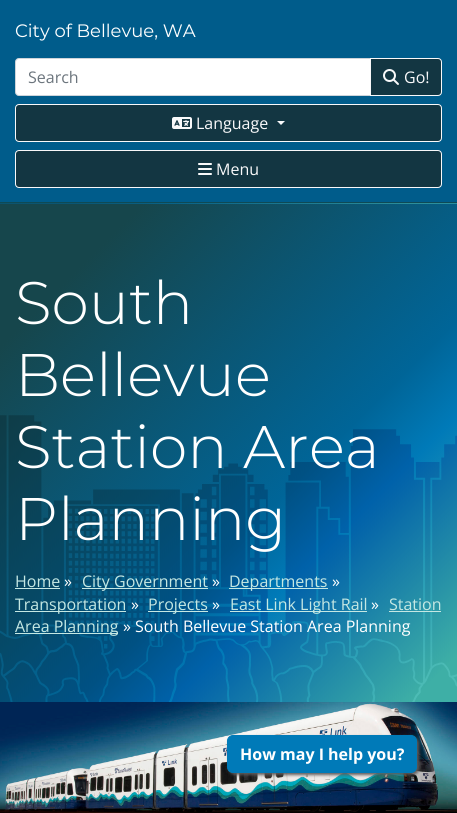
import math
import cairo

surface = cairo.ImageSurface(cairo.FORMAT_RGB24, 457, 813)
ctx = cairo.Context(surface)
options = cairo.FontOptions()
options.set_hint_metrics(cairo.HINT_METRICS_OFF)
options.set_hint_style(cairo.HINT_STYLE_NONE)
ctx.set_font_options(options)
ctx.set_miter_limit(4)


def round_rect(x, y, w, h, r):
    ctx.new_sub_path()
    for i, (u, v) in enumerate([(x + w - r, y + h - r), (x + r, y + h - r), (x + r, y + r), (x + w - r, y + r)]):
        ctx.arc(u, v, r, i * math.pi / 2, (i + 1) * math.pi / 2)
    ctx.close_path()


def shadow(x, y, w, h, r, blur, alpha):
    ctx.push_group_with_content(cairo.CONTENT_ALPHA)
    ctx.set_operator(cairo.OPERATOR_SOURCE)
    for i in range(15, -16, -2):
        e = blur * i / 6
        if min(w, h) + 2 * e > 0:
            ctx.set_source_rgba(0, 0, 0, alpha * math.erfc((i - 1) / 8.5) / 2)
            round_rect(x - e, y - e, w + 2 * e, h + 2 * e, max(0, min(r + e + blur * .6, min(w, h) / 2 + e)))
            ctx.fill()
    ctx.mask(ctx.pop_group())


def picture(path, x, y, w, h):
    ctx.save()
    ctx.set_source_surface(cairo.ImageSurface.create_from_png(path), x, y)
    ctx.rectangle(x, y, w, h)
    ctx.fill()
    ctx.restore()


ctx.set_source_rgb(0, 0.361, 0.545)
ctx.paint()
ctx.set_source_rgb(0.055, 0.29, 0.333)
ctx.rectangle(0, 202, 457, 1)
ctx.fill()
ctx.select_font_face("Montserrat")
ctx.set_font_size(18)
ctx.set_source_rgb(1, 1, 1)
ctx.move_to(15, 37)
ctx.show_text("City of Bellevue, WA")
ctx.new_path()
ctx.move_to(19, 58.5)
ctx.line_to(370.5, 58.5)
ctx.line_to(370.5, 95.5)
ctx.line_to(19, 95.5)
ctx.curve_to(17, 95.5, 15.5, 94, 15.5, 92)
ctx.line_to(15.5, 62)
ctx.curve_to(15.5, 60, 17, 58.5, 19, 58.5)
ctx.close_path()
ctx.fill_preserve()
ctx.set_source_rgb(0.808, 0.831, 0.855)
ctx.set_line_width(1)
ctx.stroke()
ctx.select_font_face("Open Sans")
ctx.set_font_size(16)
ctx.set_source_rgb(0.424, 0.459, 0.49)
ctx.move_to(28, 83)
ctx.show_text("Search")
ctx.set_source_rgb(0.078, 0.212, 0.259)
ctx.new_path()
ctx.move_to(370.5, 58.5)
ctx.line_to(438, 58.5)
ctx.curve_to(440, 58.5, 441.5, 60, 441.5, 62)
ctx.line_to(441.5, 92)
ctx.curve_to(441.5, 94, 440, 95.5, 438, 95.5)
ctx.line_to(370.5, 95.5)
ctx.close_path()
ctx.fill_preserve()
ctx.set_source_rgb(0.973, 0.976, 0.98)
ctx.stroke()
picture("img1.png", 383, 69, 16, 16)
ctx.move_to(404, 83)
ctx.show_text("Go!")
ctx.set_source_rgb(0.078, 0.212, 0.259)
round_rect(15.5, 104.5, 426, 37, 3.5)
ctx.fill_preserve()
ctx.set_source_rgb(0.973, 0.976, 0.98)
ctx.stroke()
picture("img2.png", 172, 117, 20, 12)
ctx.move_to(196, 129)
ctx.show_text("Language")
ctx.new_path()
ctx.move_to(277, 121)
ctx.line_to(285, 121)
ctx.line_to(281, 125)
ctx.close_path()
ctx.fill()
ctx.set_source_rgb(0.078, 0.212, 0.259)
round_rect(15.5, 150.5, 426, 37, 3.5)
ctx.fill_preserve()
ctx.set_source_rgb(0.973, 0.976, 0.98)
ctx.stroke()
picture("img3.png", 198, 163, 14, 12)
ctx.move_to(216, 175)
ctx.show_text("Menu")
picture("img4.png", 0, 203, 457, 499)
ctx.select_font_face("Montserrat Light")
ctx.set_font_size(60)
ctx.set_source_rgb(1, 1, 1)
ctx.move_to(15, 324)
ctx.show_text("South")
ctx.move_to(15, 396)
ctx.show_text("Bellevue")
ctx.move_to(15, 468)
ctx.show_text("Station Area")
ctx.move_to(15, 540)
ctx.show_text("Planning")
ctx.select_font_face("Open Sans")
ctx.set_font_size(16)
ctx.set_source_rgb(0.773, 0.91, 0.89)
ctx.move_to(15, 587)
ctx.show_text("Home")
ctx.rectangle(15, 588, 45, 1)
ctx.fill()
ctx.set_source_rgb(1, 1, 1)
ctx.move_to(64, 587)
ctx.show_text("»")
ctx.set_source_rgb(0.773, 0.91, 0.89)
ctx.rectangle(82, 588, 126, 1)
ctx.fill()
ctx.move_to(82, 587)
ctx.show_text("City Government")
ctx.set_source_rgb(1, 1, 1)
ctx.move_to(212, 587)
ctx.show_text("»")
ctx.set_source_rgb(0.773, 0.91, 0.89)
ctx.rectangle(229, 588, 99, 1)
ctx.fill()
ctx.move_to(229, 587)
ctx.show_text("Departments")
ctx.set_source_rgb(1, 1, 1)
ctx.move_to(332, 587)
ctx.show_text("»")
ctx.set_source_rgb(0.773, 0.91, 0.89)
ctx.rectangle(15, 611, 111, 1)
ctx.fill()
ctx.move_to(15, 610)
ctx.show_text("Transportation")
ctx.set_source_rgb(1, 1, 1)
ctx.move_to(212, 610)
ctx.show_text("»")
ctx.set_source_rgb(0.773, 0.91, 0.89)
ctx.rectangle(230, 611, 137, 1)
ctx.fill()
ctx.move_to(230, 610)
ctx.show_text("East Link Light Rail")
ctx.set_source_rgb(1, 1, 1)
ctx.move_to(371, 610)
ctx.show_text("»")
ctx.set_source_rgb(0.773, 0.91, 0.89)
ctx.move_to(389, 610)
ctx.show_text("Station")
ctx.rectangle(389, 611, 52, 1)
ctx.fill()
ctx.rectangle(15, 633, 103, 1)
ctx.fill()
ctx.move_to(15, 632)
ctx.show_text("Area Planning")
ctx.set_source_rgb(1, 1, 1)
ctx.move_to(131, 610)
ctx.show_text("»")
ctx.set_source_rgb(0.773, 0.91, 0.89)
ctx.rectangle(148, 611, 60, 1)
ctx.fill()
ctx.move_to(148, 610)
ctx.show_text("Projects")
ctx.set_source_rgb(1, 1, 1)
ctx.move_to(123, 632)
ctx.show_text("» South Bellevue Station Area Planning")
picture("img5.png", 0, 702, 457, 111)
ctx.set_source_rgb(0.369, 0.357, 0.357)
shadow(229, 737, 190, 38, 6, 1.5, 1)
ctx.set_source_rgb(0, 0.478, 0.722)
round_rect(227.5, 735.5, 189, 37, 5.5)
ctx.fill_preserve()
ctx.stroke()
ctx.select_font_face("Open Sans", cairo.FONT_SLANT_NORMAL, cairo.FONT_WEIGHT_BOLD)
ctx.set_source_rgb(1, 1, 1)
ctx.move_to(240, 760)
ctx.show_text("How may I help you?")
surface.write_to_png("page.png")
